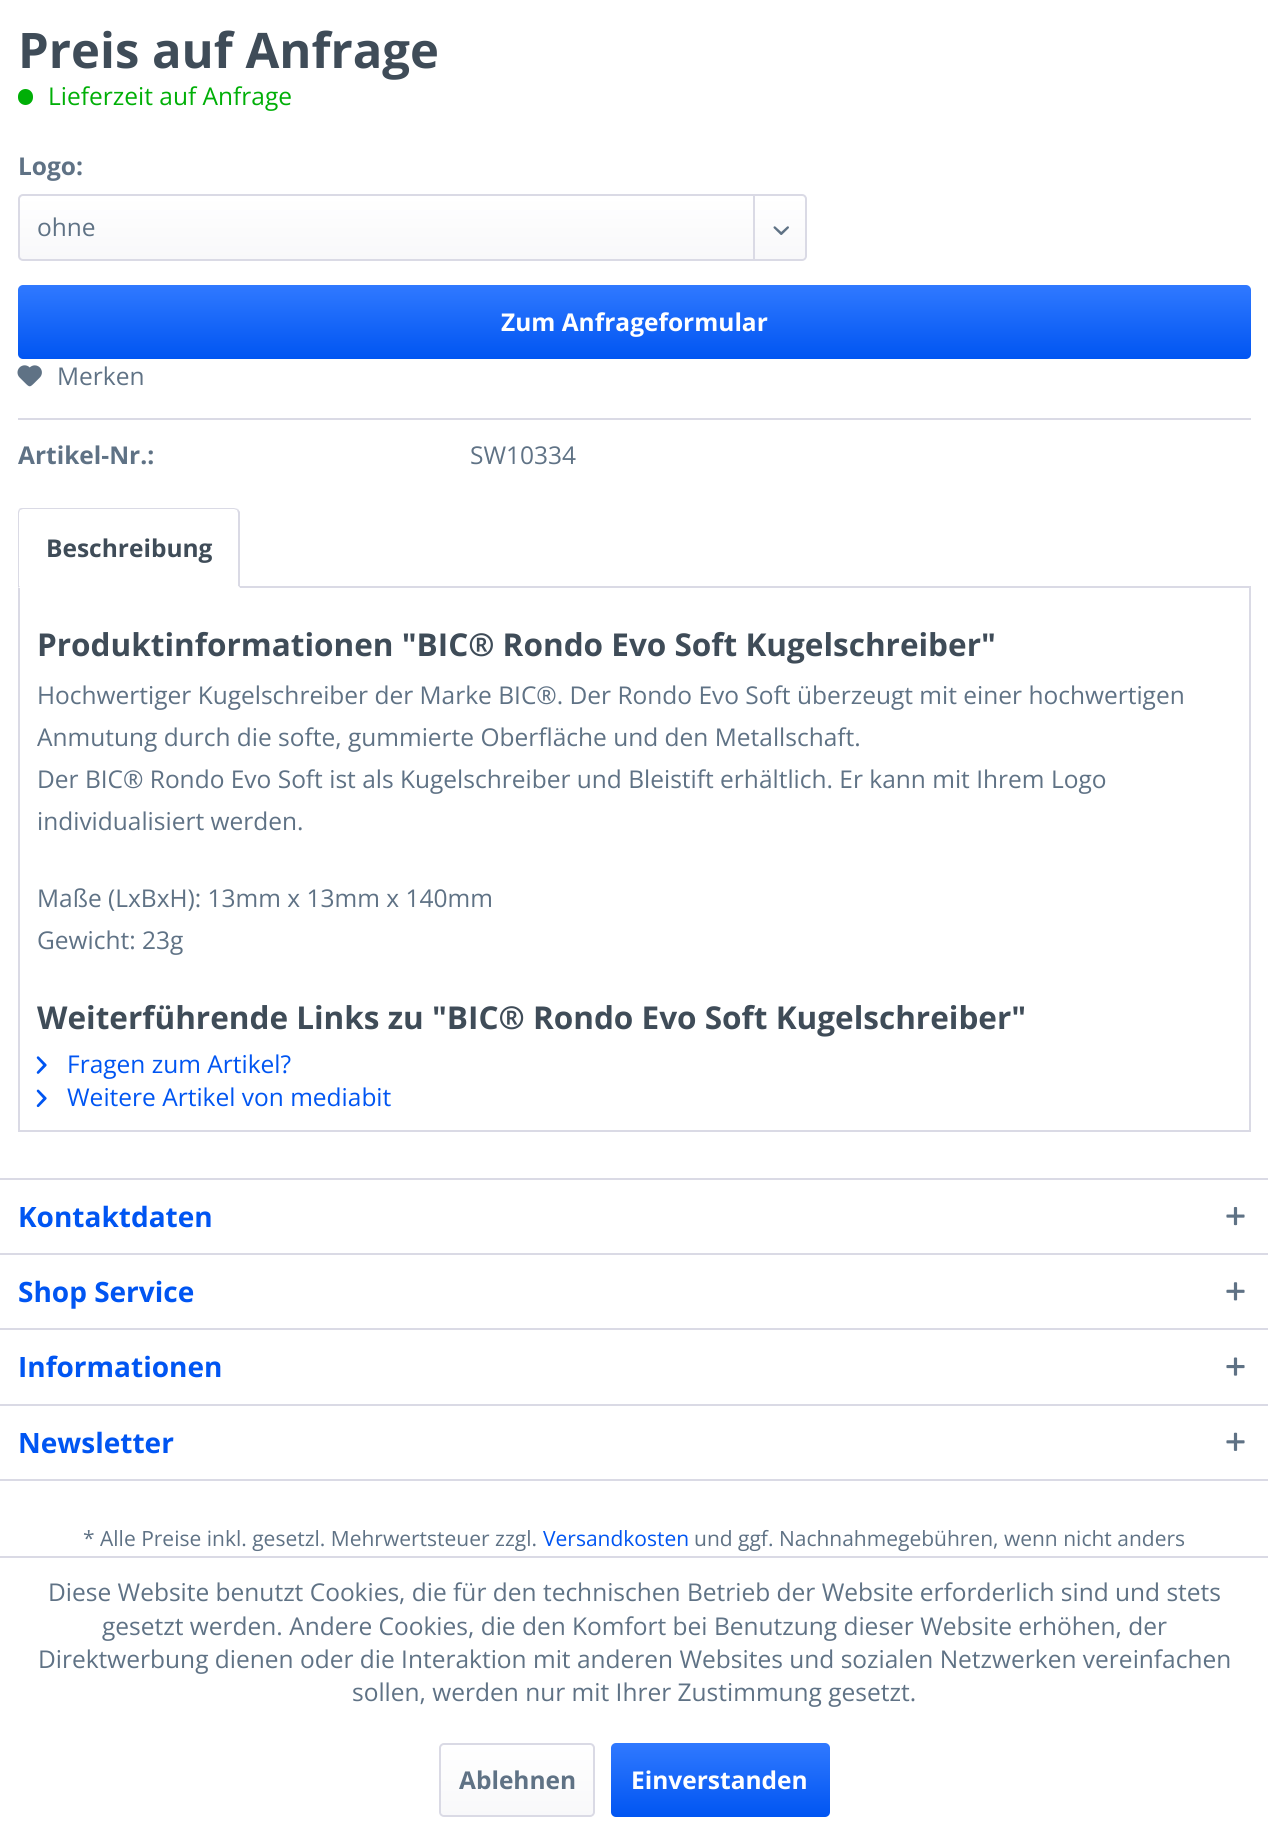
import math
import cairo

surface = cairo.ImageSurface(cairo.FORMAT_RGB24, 1268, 1833)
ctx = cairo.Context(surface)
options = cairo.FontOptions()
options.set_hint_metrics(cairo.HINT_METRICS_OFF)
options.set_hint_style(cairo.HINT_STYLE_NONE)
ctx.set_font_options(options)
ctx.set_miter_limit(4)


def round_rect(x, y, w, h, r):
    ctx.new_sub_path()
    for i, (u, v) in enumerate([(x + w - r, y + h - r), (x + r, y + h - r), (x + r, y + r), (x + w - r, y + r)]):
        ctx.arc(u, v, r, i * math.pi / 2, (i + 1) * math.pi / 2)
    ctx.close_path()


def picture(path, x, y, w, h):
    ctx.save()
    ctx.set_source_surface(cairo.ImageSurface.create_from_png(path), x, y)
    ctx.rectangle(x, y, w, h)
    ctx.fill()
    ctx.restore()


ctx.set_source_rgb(1, 1, 1)
ctx.paint()
ctx.select_font_face("Open Sans", cairo.FONT_SLANT_NORMAL, cairo.FONT_WEIGHT_BOLD)
ctx.set_font_size(49)
ctx.set_source_rgb(0.247, 0.298, 0.345)
ctx.move_to(18, 68)
ctx.show_text("Preis auf Anfrage")
ctx.set_source_rgb(0, 0.686, 0.031)
round_rect(18, 89, 15, 16, 7.5)
ctx.fill()
ctx.select_font_face("Open Sans")
ctx.set_font_size(24.5)
ctx.move_to(48, 105)
ctx.show_text("Lieferzeit auf Anfrage")
ctx.select_font_face("Open Sans", cairo.FONT_SLANT_NORMAL, cairo.FONT_WEIGHT_BOLD)
ctx.set_source_rgb(0.373, 0.447, 0.522)
ctx.move_to(18, 175)
ctx.show_text("Logo:")
gradient = cairo.LinearGradient(412, 196, 412, 259)
gradient.add_color_stop_rgba(0, 1, 1, 1, 1)
gradient.add_color_stop_rgba(1, 0.973, 0.973, 0.98, 1)
ctx.set_source(gradient)
round_rect(19, 196, 786, 63, 4)
ctx.fill()
round_rect(19, 195, 787, 65, 4)
ctx.set_source_rgb(0.855, 0.855, 0.898)
ctx.stroke()
ctx.select_font_face("Open Sans")
ctx.set_source_rgb(0.373, 0.447, 0.522)
ctx.move_to(37, 236)
ctx.show_text("ohne")
ctx.set_source_rgb(0.855, 0.855, 0.898)
ctx.rectangle(753, 196, 2, 63)
ctx.fill()
picture("img1.png", 773, 226, 16, 9)
gradient = cairo.LinearGradient(634, 285, 634, 359)
gradient.add_color_stop_rgba(0, 0.188, 0.475, 1, 1)
gradient.add_color_stop_rgba(1, 0, 0.333, 0.949, 1)
ctx.set_source(gradient)
round_rect(18, 285, 1233, 74, 5)
ctx.fill()
ctx.select_font_face("Open Sans", cairo.FONT_SLANT_NORMAL, cairo.FONT_WEIGHT_BOLD)
ctx.set_source_rgb(1, 1, 1)
ctx.move_to(501, 331)
ctx.show_text("Zum Anfrageformular")
ctx.set_source_rgb(0.855, 0.855, 0.898)
ctx.rectangle(18, 418, 1233, 2)
ctx.fill()
picture("img2.png", 17, 365, 25, 22)
ctx.select_font_face("Open Sans")
ctx.set_source_rgb(0.373, 0.447, 0.522)
ctx.move_to(57, 385)
ctx.show_text("Merken")
ctx.select_font_face("Open Sans", cairo.FONT_SLANT_NORMAL, cairo.FONT_WEIGHT_BOLD)
ctx.move_to(18, 464)
ctx.show_text("Artikel-Nr.:")
ctx.select_font_face("Open Sans")
ctx.move_to(470, 464)
ctx.show_text("SW10334")
ctx.rectangle(19, 587, 1231, 544)
ctx.set_source_rgb(0.855, 0.855, 0.898)
ctx.stroke()
ctx.set_source_rgb(1, 1, 1)
ctx.new_path()
ctx.move_to(23, 508)
ctx.line_to(235, 508)
ctx.curve_to(238, 508, 240, 510, 240, 513)
ctx.line_to(240, 588)
ctx.line_to(18, 588)
ctx.line_to(18, 513)
ctx.curve_to(18, 510, 20, 508, 23, 508)
ctx.close_path()
ctx.fill()
ctx.set_source_rgb(0.855, 0.855, 0.898)
ctx.new_path()
ctx.move_to(23, 508)
ctx.curve_to(22, 508, 20, 508, 19, 509)
ctx.line_to(20, 510)
ctx.line_to(23, 509)
ctx.line_to(234, 509)
ctx.line_to(237, 510)
ctx.line_to(238, 509)
ctx.line_to(234, 508)
ctx.close_path()
ctx.fill()
ctx.new_path()
ctx.move_to(238, 509)
ctx.line_to(240, 512)
ctx.line_to(240, 588)
ctx.line_to(238, 586)
ctx.line_to(238, 513)
ctx.line_to(237, 510)
ctx.close_path()
ctx.fill()
ctx.set_source_rgb(1, 1, 1)
ctx.new_path()
ctx.move_to(240, 588)
ctx.line_to(238, 586)
ctx.line_to(20, 586)
ctx.line_to(18, 588)
ctx.close_path()
ctx.fill()
ctx.set_source_rgb(0.855, 0.855, 0.898)
ctx.new_path()
ctx.move_to(19, 509)
ctx.line_to(18, 512)
ctx.line_to(18, 588)
ctx.line_to(20, 586)
ctx.line_to(19, 586)
ctx.line_to(19, 513)
ctx.line_to(20, 510)
ctx.close_path()
ctx.fill()
ctx.select_font_face("Open Sans", cairo.FONT_SLANT_NORMAL, cairo.FONT_WEIGHT_BOLD)
ctx.set_source_rgb(0.247, 0.298, 0.345)
ctx.move_to(46, 557)
ctx.show_text("Beschreibung")
ctx.set_font_size(31.5)
ctx.move_to(37, 656)
ctx.show_text("Produktinformationen \"BIC® Rondo Evo Soft Kugelschreiber\"")
ctx.select_font_face("Open Sans")
ctx.set_font_size(24.5)
ctx.set_source_rgb(0.373, 0.447, 0.522)
ctx.move_to(37, 704)
ctx.show_text("Hochwertiger Kugelschreiber der Marke BIC®. Der Rondo Evo Soft überzeugt mit einer hochwertigen")
ctx.move_to(37, 746)
ctx.show_text("Anmutung durch die softe, gummierte Oberfläche und den Metallschaft.")
ctx.move_to(37, 788)
ctx.show_text("Der BIC® Rondo Evo Soft ist als Kugelschreiber und Bleistift erhältlich. Er kann mit Ihrem Logo")
ctx.move_to(37, 830)
ctx.show_text("individualisiert werden.")
ctx.move_to(37, 907)
ctx.show_text("Maße (LxBxH): 13mm x 13mm x 140mm")
ctx.move_to(37, 949)
ctx.show_text("Gewicht: 23g")
ctx.select_font_face("Open Sans", cairo.FONT_SLANT_NORMAL, cairo.FONT_WEIGHT_BOLD)
ctx.set_font_size(31.5)
ctx.set_source_rgb(0.247, 0.298, 0.345)
ctx.move_to(37, 1029)
ctx.show_text("Weiterführende Links zu \"BIC® Rondo Evo Soft Kugelschreiber\"")
picture("img3.png", 36, 1056, 11, 18)
ctx.select_font_face("Open Sans")
ctx.set_font_size(24.5)
ctx.set_source_rgb(0, 0.333, 0.949)
ctx.move_to(67, 1073)
ctx.show_text("Fragen zum Artikel?")
picture("img4.png", 36, 1089, 11, 19)
ctx.move_to(67, 1106)
ctx.show_text("Weitere Artikel von mediabit")
ctx.set_source_rgb(0.855, 0.855, 0.898)
ctx.rectangle(0, 1178, 1268, 2)
ctx.fill()
ctx.select_font_face("Open Sans", cairo.FONT_SLANT_NORMAL, cairo.FONT_WEIGHT_BOLD)
ctx.set_font_size(28)
ctx.set_source_rgb(0, 0.333, 0.949)
ctx.move_to(18, 1227)
ctx.show_text("Kontaktdaten")
picture("img5.png", 1226, 1206, 19, 20)
ctx.set_source_rgb(0.855, 0.855, 0.898)
ctx.rectangle(0, 1253, 1268, 2)
ctx.fill()
ctx.set_source_rgb(0, 0.333, 0.949)
ctx.move_to(18, 1302)
ctx.show_text("Shop Service")
picture("img6.png", 1226, 1282, 19, 19)
ctx.set_source_rgb(0.855, 0.855, 0.898)
ctx.rectangle(0, 1328, 1268, 2)
ctx.fill()
ctx.set_source_rgb(0, 0.333, 0.949)
ctx.move_to(18, 1377)
ctx.show_text("Informationen")
picture("img7.png", 1226, 1357, 19, 19)
ctx.set_source_rgb(0.855, 0.855, 0.898)
ctx.rectangle(0, 1404, 1268, 2)
ctx.fill()
ctx.rectangle(0, 1479, 1268, 2)
ctx.fill()
ctx.set_source_rgb(0, 0.333, 0.949)
ctx.move_to(18, 1453)
ctx.show_text("Newsletter")
picture("img8.png", 1226, 1432, 19, 19)
ctx.select_font_face("Open Sans")
ctx.set_font_size(21)
ctx.set_source_rgb(0.373, 0.447, 0.522)
ctx.move_to(83, 1546)
ctx.show_text("* Alle Preise inkl. gesetzl. Mehrwertsteuer zzgl.")
ctx.set_source_rgb(0, 0.333, 0.949)
ctx.move_to(543, 1546)
ctx.show_text("Versandkosten")
ctx.set_source_rgb(0.373, 0.447, 0.522)
ctx.move_to(694, 1546)
ctx.show_text("und ggf. Nachnahmegebühren, wenn nicht anders")
ctx.set_source_rgb(0.855, 0.855, 0.898)
ctx.rectangle(0, 1556, 1268, 2)
ctx.fill()
ctx.set_font_size(24.5)
ctx.set_source_rgb(0.373, 0.447, 0.522)
ctx.move_to(48, 1601)
ctx.show_text("Diese Website benutzt Cookies, die für den technischen Betrieb der Website erforderlich sind und stets")
ctx.move_to(102, 1635)
ctx.show_text("gesetzt werden. Andere Cookies, die den Komfort bei Benutzung dieser Website erhöhen, der")
ctx.move_to(38, 1668)
ctx.show_text("Direktwerbung dienen oder die Interaktion mit anderen Websites und sozialen Netzwerken vereinfachen")
ctx.move_to(352, 1701)
ctx.show_text("sollen, werden nur mit Ihrer Zustimmung gesetzt.")
gradient = cairo.LinearGradient(517, 1745, 517, 1815)
gradient.add_color_stop_rgba(0, 1, 1, 1, 1)
gradient.add_color_stop_rgba(1, 0.973, 0.973, 0.98, 1)
ctx.set_source(gradient)
round_rect(441, 1745, 152, 70, 4)
ctx.fill()
round_rect(440, 1744, 154, 72, 4)
ctx.set_source_rgb(0.855, 0.855, 0.898)
ctx.stroke()
ctx.select_font_face("Open Sans", cairo.FONT_SLANT_NORMAL, cairo.FONT_WEIGHT_BOLD)
ctx.set_source_rgb(0.373, 0.447, 0.522)
ctx.move_to(459, 1789)
ctx.show_text("Ablehnen")
gradient = cairo.LinearGradient(720, 1743, 720, 1817)
gradient.add_color_stop_rgba(0, 0.188, 0.475, 1, 1)
gradient.add_color_stop_rgba(1, 0, 0.333, 0.949, 1)
ctx.set_source(gradient)
round_rect(611, 1743, 219, 74, 5)
ctx.fill()
ctx.set_source_rgb(1, 1, 1)
ctx.move_to(631, 1789)
ctx.show_text("Einverstanden")
surface.write_to_png("page.png")
